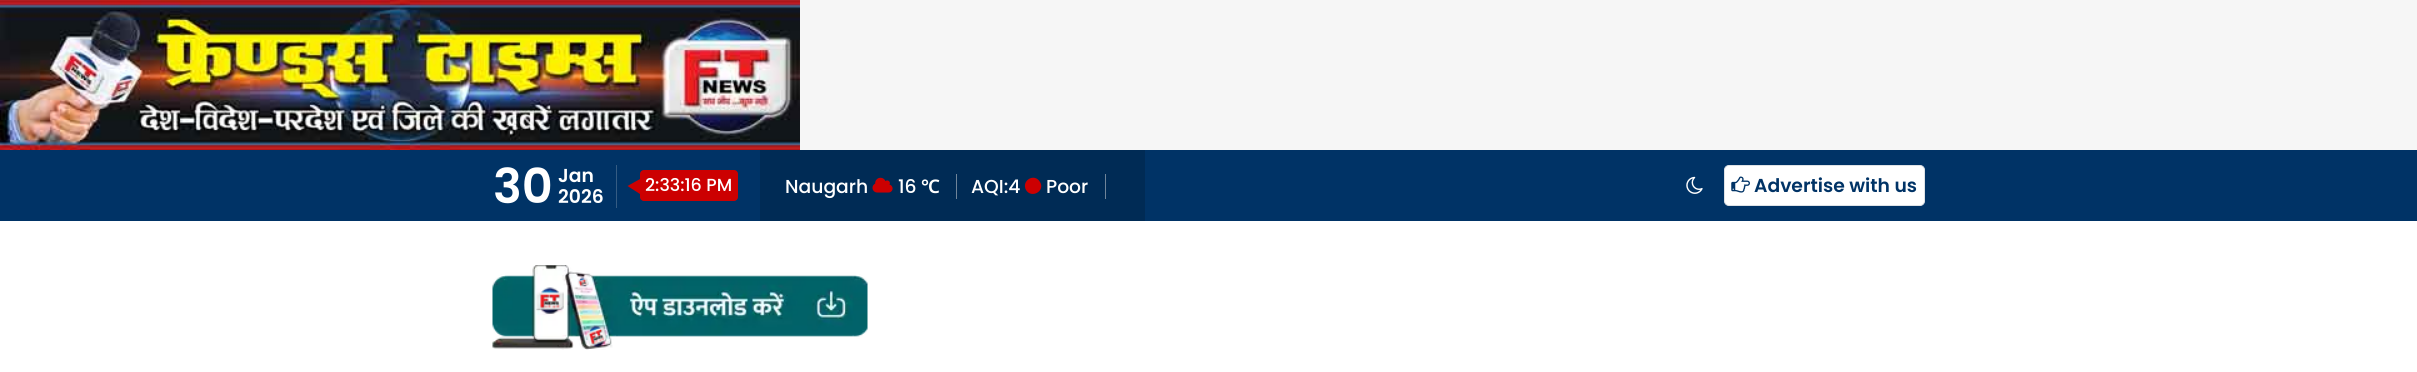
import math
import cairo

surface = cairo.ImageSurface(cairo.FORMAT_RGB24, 2417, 372)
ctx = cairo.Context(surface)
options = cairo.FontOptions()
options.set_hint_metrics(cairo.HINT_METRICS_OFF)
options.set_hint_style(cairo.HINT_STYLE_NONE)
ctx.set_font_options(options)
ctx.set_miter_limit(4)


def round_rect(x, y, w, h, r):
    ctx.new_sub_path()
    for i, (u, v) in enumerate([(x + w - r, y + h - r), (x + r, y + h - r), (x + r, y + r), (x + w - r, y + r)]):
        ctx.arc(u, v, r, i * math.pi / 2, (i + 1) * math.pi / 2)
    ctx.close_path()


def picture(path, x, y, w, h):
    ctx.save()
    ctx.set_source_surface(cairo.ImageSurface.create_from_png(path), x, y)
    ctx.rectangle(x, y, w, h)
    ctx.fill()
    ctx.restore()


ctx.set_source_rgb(0.961, 0.961, 0.961)
ctx.paint()
picture("img1.png", 0, 0, 800, 150)
ctx.set_source_rgb(0, 0.2, 0.4)
ctx.rectangle(0, 150, 2417, 71)
ctx.fill()
ctx.select_font_face("Poppins SemiBold")
ctx.set_font_size(48)
ctx.set_source_rgb(1, 1, 1)
ctx.move_to(493, 203)
ctx.show_text("30")
ctx.set_source_rgb(0.208, 0.361, 0.514)
ctx.rectangle(616, 165, 1, 43)
ctx.fill()
ctx.set_font_size(18.75)
ctx.set_source_rgb(1, 1, 1)
ctx.move_to(558, 182)
ctx.show_text("Jan")
ctx.move_to(558, 203)
ctx.show_text("2026")
ctx.set_source_rgb(0.8, 0, 0.004)
round_rect(640, 170, 98, 31, 4)
ctx.fill()
ctx.new_path()
ctx.move_to(640, 179)
ctx.line_to(640, 194)
ctx.line_to(627.5, 186)
ctx.close_path()
ctx.fill()
ctx.select_font_face("Poppins Medium")
ctx.set_font_size(17.5)
ctx.set_source_rgb(1, 1, 1)
ctx.move_to(645, 191)
ctx.show_text("2:33:16 PM")
ctx.set_source_rgb(0, 0.169, 0.333)
ctx.rectangle(760, 150, 385, 71)
ctx.fill()
ctx.set_font_size(18.75)
ctx.set_source_rgb(1, 1, 1)
ctx.move_to(785, 193)
ctx.show_text("Naugarh")
picture("img2.png", 872, 177, 21, 16)
ctx.move_to(898, 193)
ctx.show_text("16")
ctx.select_font_face("Noto Sans SemiBold")
ctx.move_to(921, 193)
ctx.show_text("℃")
ctx.set_source_rgb(0.435, 0.518, 0.6)
ctx.rectangle(956, 174, 1, 25)
ctx.fill()
ctx.select_font_face("Poppins Medium")
ctx.set_source_rgb(1, 1, 1)
ctx.move_to(971, 193)
ctx.show_text("AQI:4")
ctx.set_source_rgb(0.8, 0, 0.004)
ctx.new_path()
ctx.move_to(1040, 182)
ctx.curve_to(1045.5, 191, 1031.5, 199, 1026, 190)
ctx.curve_to(1021, 180.5, 1034.5, 172.5, 1040, 182)
ctx.close_path()
ctx.fill()
ctx.set_source_rgb(1, 1, 1)
ctx.move_to(1046, 193)
ctx.show_text("Poor")
ctx.set_source_rgb(0.435, 0.518, 0.6)
ctx.rectangle(1105, 174, 1, 25)
ctx.fill()
picture("img3.png", 1686, 176, 17, 18)
ctx.set_source_rgb(1, 1, 1)
round_rect(1724.5, 165.5, 200, 40, 4.5)
ctx.fill_preserve()
ctx.set_source_rgb(0.871, 0.886, 0.902)
ctx.set_line_width(1)
ctx.stroke()
picture("img4.png", 1731, 176, 19, 17)
ctx.select_font_face("Poppins SemiBold")
ctx.set_source_rgb(0, 0.2, 0.4)
ctx.move_to(1754, 192)
ctx.show_text("Advertise with us")
ctx.set_source_rgb(1, 1, 1)
ctx.rectangle(0, 221, 2417, 151)
ctx.fill()
picture("img5.png", 492, 265, 376, 85)
surface.write_to_png("page.png")
